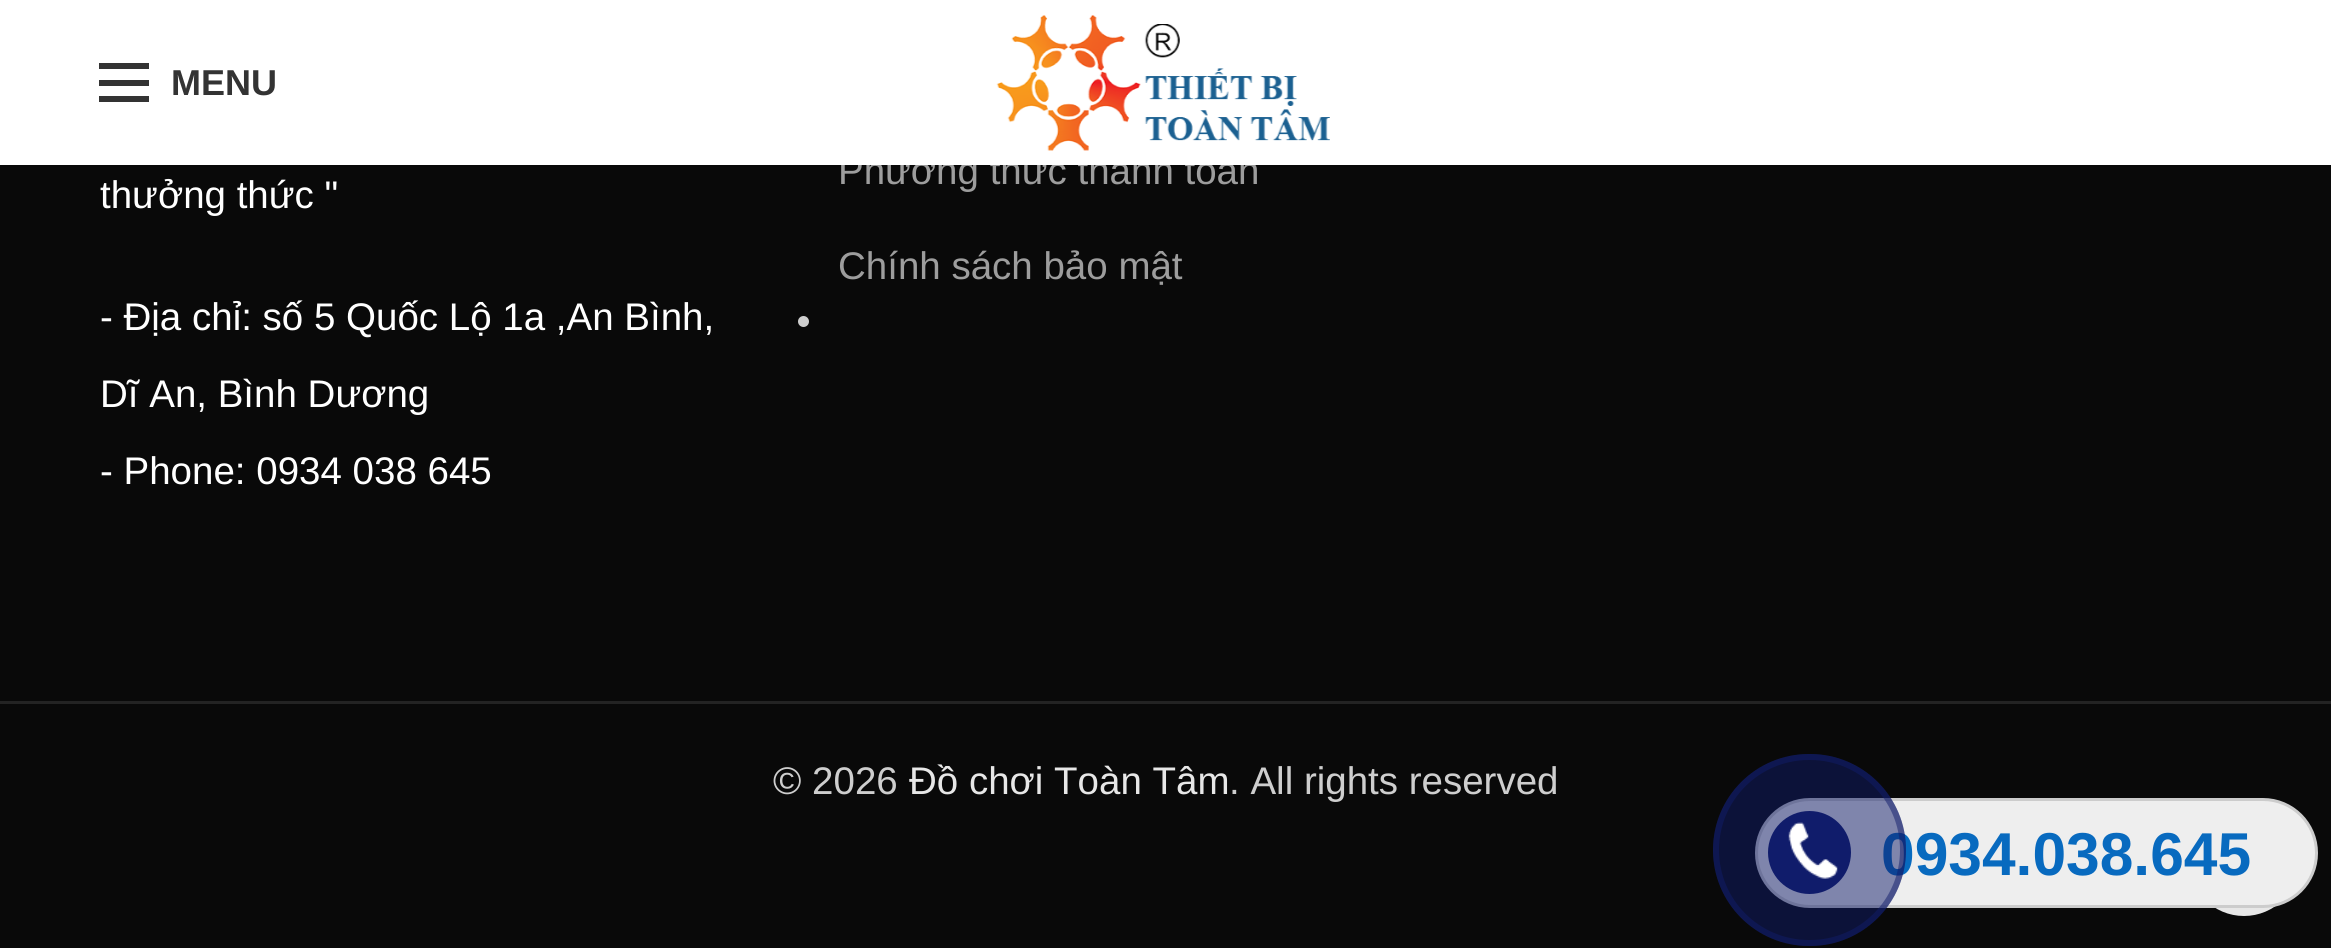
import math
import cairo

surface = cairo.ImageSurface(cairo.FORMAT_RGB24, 2331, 948)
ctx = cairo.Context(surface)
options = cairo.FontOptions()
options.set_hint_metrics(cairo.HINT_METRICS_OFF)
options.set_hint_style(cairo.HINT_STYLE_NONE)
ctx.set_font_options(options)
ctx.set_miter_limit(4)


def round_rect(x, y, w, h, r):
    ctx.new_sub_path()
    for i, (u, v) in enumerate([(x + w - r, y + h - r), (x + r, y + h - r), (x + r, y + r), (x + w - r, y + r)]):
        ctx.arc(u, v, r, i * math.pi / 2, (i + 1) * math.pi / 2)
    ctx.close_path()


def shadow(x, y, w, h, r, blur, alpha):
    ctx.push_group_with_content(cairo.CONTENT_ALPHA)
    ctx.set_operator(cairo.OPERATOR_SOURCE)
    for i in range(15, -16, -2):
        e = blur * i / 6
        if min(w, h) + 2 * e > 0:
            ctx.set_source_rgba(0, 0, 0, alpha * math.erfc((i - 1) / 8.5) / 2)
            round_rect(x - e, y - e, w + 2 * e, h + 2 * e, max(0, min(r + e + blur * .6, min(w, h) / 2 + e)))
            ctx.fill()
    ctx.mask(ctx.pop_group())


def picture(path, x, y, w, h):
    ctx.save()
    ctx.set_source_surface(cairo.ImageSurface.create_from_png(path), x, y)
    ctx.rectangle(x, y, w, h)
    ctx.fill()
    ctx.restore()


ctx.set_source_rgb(0.039, 0.039, 0.039)
ctx.paint()
ctx.set_source_rgb(0, 0, 0)
shadow(0, 3, 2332, 165, 0, 4, 0.1)
ctx.select_font_face("Liberation Sans")
ctx.set_font_size(38.5)
ctx.set_source_rgb(0.616, 0.616, 0.616)
ctx.move_to(838, 184)
ctx.show_text("Phương thức thanh toán")
ctx.set_source_rgb(1, 1, 1)
ctx.rectangle(0, 0, 2331, 165)
ctx.fill()
ctx.set_source_rgb(0.2, 0.2, 0.2)
ctx.rectangle(99, 80, 50, 6)
ctx.fill()
ctx.rectangle(99, 63, 50, 6)
ctx.fill()
ctx.rectangle(99, 96, 50, 6)
ctx.fill()
ctx.select_font_face("Liberation Sans", cairo.FONT_SLANT_NORMAL, cairo.FONT_WEIGHT_BOLD)
ctx.set_font_size(36)
ctx.move_to(171, 95)
ctx.show_text("MENU")
picture("img1.png", 996, 15, 334, 136)
ctx.select_font_face("Liberation Sans")
ctx.set_font_size(38.5)
ctx.set_source_rgb(1, 1, 1)
ctx.move_to(100, 208)
ctx.show_text("thưởng thức \"")
ctx.move_to(100, 330)
ctx.show_text("- Địa chỉ: số 5 Quốc Lộ 1a ,An Bình,")
ctx.move_to(100, 407)
ctx.show_text("Dĩ An, Bình Dương")
ctx.move_to(100, 484)
ctx.show_text("- Phone: 0934 038 645")
ctx.set_source_rgb(0.616, 0.616, 0.616)
ctx.move_to(838, 279)
ctx.show_text("Chính sách bảo mật")
ctx.set_source_rgb(0.808, 0.808, 0.808)
ctx.new_path()
ctx.arc(803.5, 321.5, 5.5, 0, 2 * math.pi)
ctx.fill()
ctx.set_source_rgb(0.137, 0.137, 0.137)
ctx.rectangle(0, 701, 2331, 3)
ctx.fill()
ctx.set_source_rgb(0.808, 0.808, 0.808)
ctx.move_to(773, 794)
ctx.show_text("© 2026")
ctx.set_source_rgb(0.906, 0.906, 0.906)
ctx.move_to(909, 794)
ctx.show_text("Đồ chơi Toàn Tâm")
ctx.set_source_rgb(0.808, 0.808, 0.808)
ctx.move_to(1229, 794)
ctx.show_text(". All rights reserved")
ctx.set_source_rgb(0.906, 0.906, 0.906)
ctx.new_path()
ctx.arc(2244, 861, 55, 0, 2 * math.pi)
ctx.fill()
ctx.set_source_rgb(0.933, 0.933, 0.933)
round_rect(1756.5, 799.5, 560, 107, 53.5)
ctx.fill_preserve()
ctx.set_source_rgb(0.8, 0.8, 0.8)
ctx.set_line_width(3)
ctx.stroke()
ctx.select_font_face("Liberation Sans", cairo.FONT_SLANT_NORMAL, cairo.FONT_WEIGHT_BOLD)
ctx.set_font_size(60.5)
ctx.set_source_rgb(0.035, 0.416, 0.749)
ctx.move_to(1881, 875)
ctx.show_text("0934.038.645")
ctx.set_source_rgba(0.063, 0.11, 0.42, 0.5)
round_rect(1713, 754, 193, 192, 96)
ctx.fill()
round_rect(1716, 757, 187, 186, 93)
ctx.set_line_width(6)
ctx.stroke()
ctx.set_source_rgb(0.063, 0.11, 0.42)
ctx.arc(1809.5, 852.5, 41.5, 0, 2 * math.pi)
ctx.fill()
picture("img2.png", 1788, 822, 50, 57)
surface.write_to_png("page.png")
